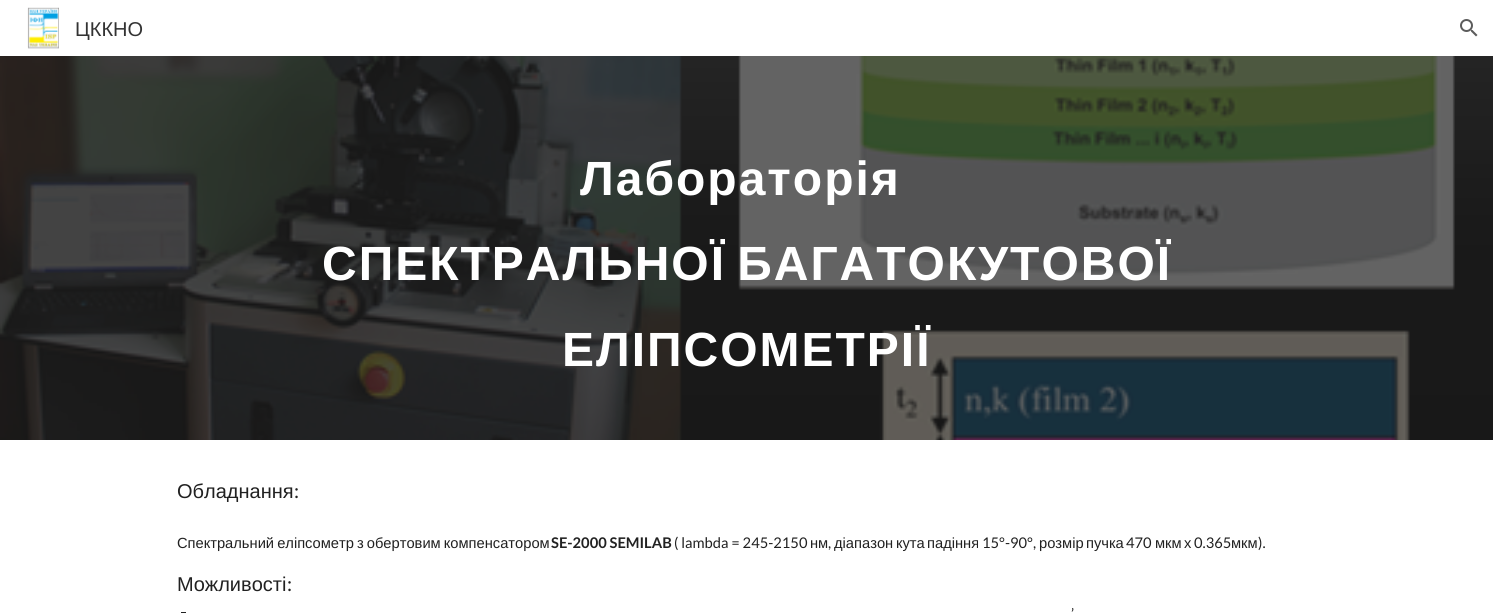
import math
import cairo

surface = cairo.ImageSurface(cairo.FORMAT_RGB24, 1493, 613)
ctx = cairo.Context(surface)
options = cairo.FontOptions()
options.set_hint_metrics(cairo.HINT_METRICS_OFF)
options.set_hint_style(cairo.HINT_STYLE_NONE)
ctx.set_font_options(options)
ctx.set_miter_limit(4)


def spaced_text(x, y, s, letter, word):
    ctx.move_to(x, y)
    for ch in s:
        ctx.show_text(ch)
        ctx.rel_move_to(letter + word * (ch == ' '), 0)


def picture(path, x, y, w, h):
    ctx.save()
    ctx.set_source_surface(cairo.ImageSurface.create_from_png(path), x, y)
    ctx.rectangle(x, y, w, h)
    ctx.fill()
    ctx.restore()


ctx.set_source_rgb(1, 1, 1)
ctx.paint()
picture("img1.png", 27, 7, 32, 42)
ctx.select_font_face("Liberation Sans")
ctx.set_font_size(20)
ctx.set_source_rgb(0.2, 0.2, 0.2)
ctx.move_to(75, 36)
ctx.show_text("ЦККНО")
picture("img2.png", 1460, 19, 18, 18)
picture("img3.png", 0, 56, 1493, 384)
ctx.select_font_face("Liberation Sans", cairo.FONT_SLANT_NORMAL, cairo.FONT_WEIGHT_BOLD)
ctx.set_font_size(48)
ctx.set_source_rgb(1, 1, 1)
spaced_text(580, 195, "Лабораторія", 2, 0)
spaced_text(322, 280, "СПЕКТРАЛЬНОЇ БАГАТОКУТОВОЇ", 2, -4)
spaced_text(562, 366, "ЕЛІПСОМЕТРІЇ", 2, 0)
ctx.select_font_face("Liberation Sans")
ctx.set_font_size(20)
ctx.set_source_rgb(0.129, 0.129, 0.129)
ctx.move_to(177, 498)
ctx.show_text("Обладнання")
ctx.select_font_face("Lato")
ctx.move_to(294, 498)
ctx.show_text(":")
ctx.select_font_face("Liberation Sans")
ctx.set_font_size(14.7)
spaced_text(177, 548, "Спектральний еліпсометр з обертовим компенсатором", 0, -1)
ctx.select_font_face("Lato", cairo.FONT_SLANT_NORMAL, cairo.FONT_WEIGHT_BOLD)
ctx.move_to(551, 548)
ctx.show_text("SE-2000 SEMILAB")
ctx.select_font_face("Lato")
ctx.move_to(674, 548)
ctx.show_text("( lambda = 245-2150")
ctx.select_font_face("Liberation Sans")
ctx.move_to(810, 548)
ctx.show_text("нм")
ctx.select_font_face("Lato")
ctx.move_to(828, 548)
ctx.show_text(",")
ctx.select_font_face("Liberation Sans")
ctx.move_to(834, 548)
ctx.show_text("діапазон")
ctx.move_to(896, 548)
ctx.show_text("кута")
ctx.move_to(927, 548)
ctx.show_text("падіння")
ctx.select_font_face("Lato")
ctx.move_to(982, 548)
ctx.show_text("15°-90°,")
ctx.select_font_face("Liberation Sans")
ctx.move_to(1039, 548)
ctx.show_text("розмір")
ctx.move_to(1086, 548)
ctx.show_text("пучка")
ctx.select_font_face("Lato")
ctx.move_to(1126, 548)
ctx.show_text("470")
ctx.select_font_face("Liberation Sans")
ctx.move_to(1155, 548)
ctx.show_text("мкм")
ctx.move_to(1184, 548)
ctx.show_text("х")
ctx.select_font_face("Lato")
ctx.move_to(1194, 548)
ctx.show_text("0.365")
ctx.select_font_face("Liberation Sans")
ctx.move_to(1231, 548)
ctx.show_text("мкм")
ctx.select_font_face("Lato")
ctx.move_to(1258, 548)
ctx.show_text(").")
ctx.select_font_face("Liberation Sans")
ctx.set_font_size(20)
ctx.move_to(177, 591)
ctx.show_text("Можливості")
ctx.select_font_face("Lato")
ctx.move_to(287, 591)
ctx.show_text(":")
ctx.set_font_size(14.7)
ctx.move_to(1071, 619)
ctx.show_text("’")
ctx.rectangle(181, 612, 5, 1)
ctx.fill()
surface.write_to_png("page.png")
